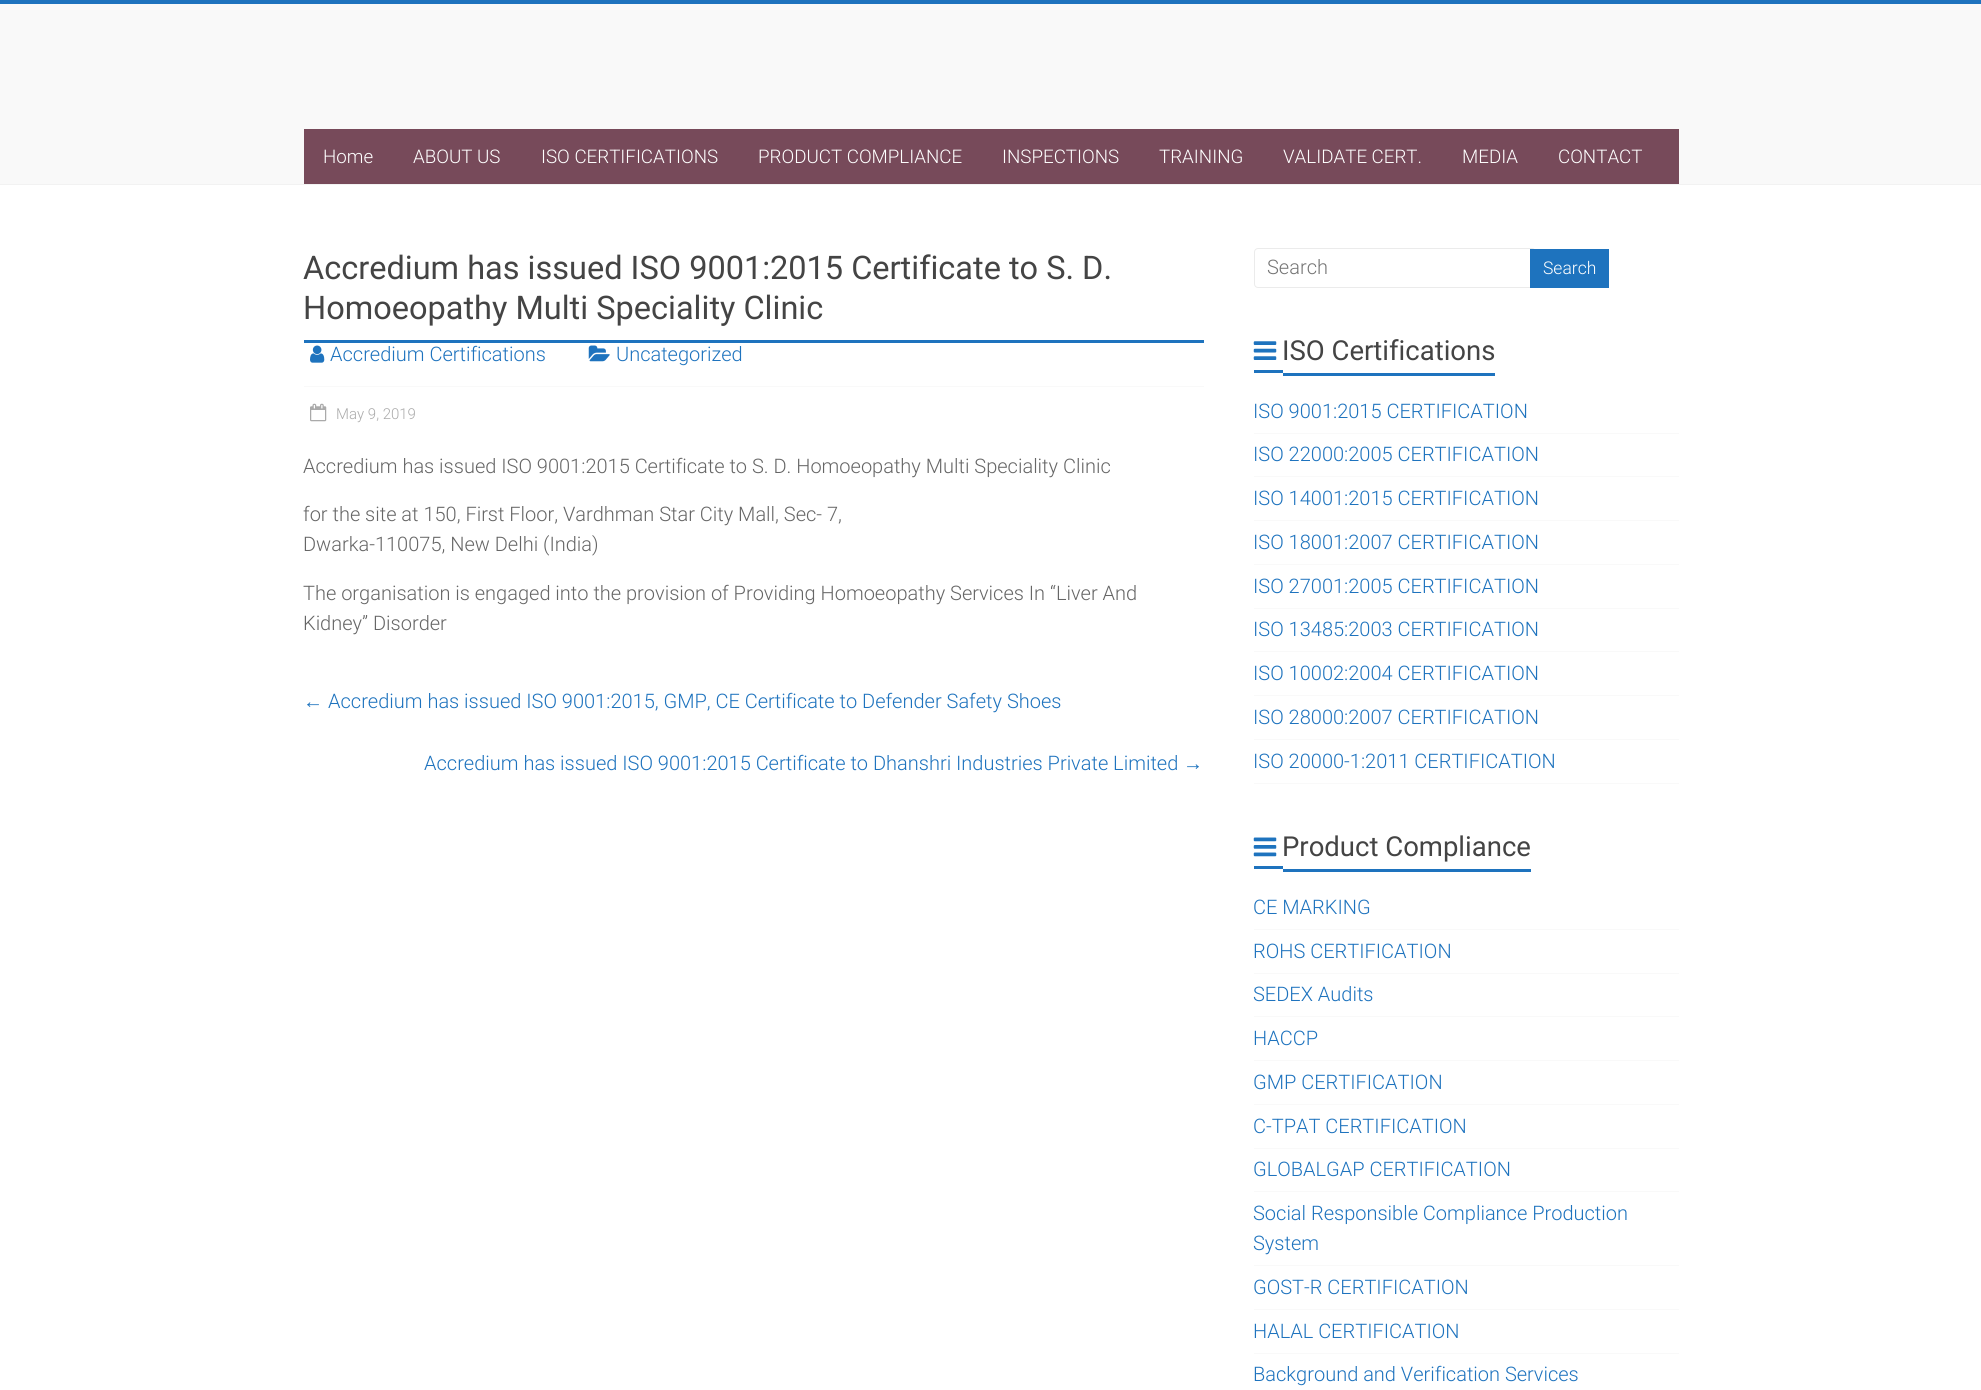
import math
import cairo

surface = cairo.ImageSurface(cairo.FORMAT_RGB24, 1981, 1390)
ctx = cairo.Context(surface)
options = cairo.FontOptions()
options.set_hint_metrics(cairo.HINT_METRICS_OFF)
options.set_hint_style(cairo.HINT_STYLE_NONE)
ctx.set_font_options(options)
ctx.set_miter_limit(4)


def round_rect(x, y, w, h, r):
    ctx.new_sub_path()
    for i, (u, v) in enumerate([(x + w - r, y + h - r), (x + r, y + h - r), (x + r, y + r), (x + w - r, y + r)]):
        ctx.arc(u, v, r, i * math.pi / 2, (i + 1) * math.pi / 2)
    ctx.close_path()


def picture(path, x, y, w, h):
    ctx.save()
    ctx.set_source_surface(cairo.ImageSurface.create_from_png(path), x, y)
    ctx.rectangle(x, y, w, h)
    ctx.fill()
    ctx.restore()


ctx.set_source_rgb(1, 1, 1)
ctx.paint()
ctx.set_source_rgb(0.118, 0.451, 0.745)
ctx.rectangle(0, 0, 1981, 4)
ctx.fill()
ctx.set_source_rgb(0.973, 0.973, 0.973)
ctx.rectangle(0, 4, 1981, 180)
ctx.fill()
ctx.set_source_rgb(0.949, 0.949, 0.949)
ctx.rectangle(0, 184, 1981, 1)
ctx.fill()
ctx.set_source_rgb(0.467, 0.29, 0.353)
ctx.rectangle(304, 129, 1375, 55)
ctx.fill()
ctx.select_font_face("Roboto Light")
ctx.set_font_size(18.75)
ctx.set_source_rgb(1, 1, 1)
ctx.move_to(323, 163)
ctx.show_text("Home")
ctx.move_to(413, 163)
ctx.show_text("ABOUT US")
ctx.move_to(541, 163)
ctx.show_text("ISO CERTIFICATIONS")
ctx.move_to(758, 163)
ctx.show_text("PRODUCT COMPLIANCE")
ctx.move_to(1002, 163)
ctx.show_text("INSPECTIONS")
ctx.move_to(1159, 163)
ctx.show_text("TRAINING")
ctx.move_to(1283, 163)
ctx.show_text("VALIDATE CERT.")
ctx.move_to(1462, 163)
ctx.show_text("MEDIA")
ctx.move_to(1558, 163)
ctx.show_text("CONTACT")
ctx.set_source_rgb(0.118, 0.451, 0.745)
ctx.rectangle(304, 340, 900, 3)
ctx.fill()
ctx.select_font_face("Roboto")
ctx.set_font_size(32.5)
ctx.set_source_rgb(0.267, 0.267, 0.267)
ctx.move_to(303, 279)
ctx.show_text("Accredium has issued ISO 9001:2015 Certificate to S. D.")
ctx.move_to(303, 319)
ctx.show_text("Homoeopathy Multi Speciality Clinic")
picture("img1.png", 310, 345, 15, 18)
ctx.select_font_face("Roboto Light")
ctx.set_font_size(20)
ctx.set_source_rgb(0.118, 0.451, 0.745)
ctx.move_to(330, 361)
ctx.show_text("Accredium Certifications")
picture("img2.png", 588, 345, 22, 17)
ctx.move_to(616, 361)
ctx.show_text("Uncategorized")
ctx.set_source_rgb(0.973, 0.973, 0.973)
ctx.rectangle(304, 386, 900, 1)
ctx.fill()
picture("img3.png", 310, 403, 17, 19)
ctx.set_font_size(15)
ctx.set_source_rgb(0.667, 0.667, 0.667)
ctx.move_to(336, 419)
ctx.show_text("May 9, 2019")
ctx.set_font_size(20)
ctx.set_source_rgb(0.4, 0.4, 0.4)
ctx.move_to(303, 473)
ctx.show_text("Accredium has issued ISO 9001:2015 Certificate to S. D. Homoeopathy Multi Speciality Clinic")
ctx.move_to(303, 521)
ctx.show_text("for the site at 150, First Floor, Vardhman Star City Mall, Sec- 7,")
ctx.move_to(303, 551)
ctx.show_text("Dwarka-110075, New Delhi (India)")
ctx.move_to(303, 600)
ctx.show_text("The organisation is engaged into the provision of Providing Homoeopathy Services In “Liver And")
ctx.move_to(303, 630)
ctx.show_text("Kidney” Disorder")
ctx.select_font_face("Liberation Sans")
ctx.set_source_rgb(0.118, 0.451, 0.745)
ctx.move_to(303, 708)
ctx.show_text("←")
ctx.select_font_face("Roboto Light")
ctx.move_to(328, 708)
ctx.show_text("Accredium has issued ISO 9001:2015, GMP, CE Certificate to Defender Safety Shoes")
ctx.move_to(424, 770)
ctx.show_text("Accredium has issued ISO 9001:2015 Certificate to Dhanshri Industries Private Limited")
ctx.select_font_face("Liberation Sans")
ctx.move_to(1183, 770)
ctx.show_text("→")
round_rect(1254.5, 248.5, 281, 39, 3.5)
ctx.set_source_rgb(0.918, 0.918, 0.918)
ctx.set_line_width(1)
ctx.stroke()
ctx.select_font_face("Roboto Light")
ctx.set_source_rgb(0.459, 0.459, 0.459)
ctx.move_to(1267, 274)
ctx.show_text("Search")
ctx.set_source_rgb(0.118, 0.451, 0.745)
ctx.rectangle(1530, 249, 79, 39)
ctx.fill()
ctx.set_font_size(17.5)
ctx.set_source_rgb(1, 1, 1)
ctx.move_to(1543, 274)
ctx.show_text("Search")
picture("img4.png", 1253, 341, 24, 19)
ctx.select_font_face("Roboto")
ctx.set_font_size(27.5)
ctx.set_source_rgb(0.267, 0.267, 0.267)
ctx.move_to(1282, 360)
ctx.show_text("ISO Certifications")
ctx.set_source_rgb(0.118, 0.451, 0.745)
ctx.rectangle(1254, 370, 29, 3)
ctx.fill()
ctx.rectangle(1283, 373, 212, 3)
ctx.fill()
ctx.set_source_rgb(0.973, 0.973, 0.973)
ctx.rectangle(1254, 433, 425, 1)
ctx.fill()
ctx.select_font_face("Roboto Light")
ctx.set_font_size(20)
ctx.set_source_rgb(0.118, 0.451, 0.745)
ctx.move_to(1253, 418)
ctx.show_text("ISO 9001:2015 CERTIFICATION")
ctx.set_source_rgb(0.973, 0.973, 0.973)
ctx.rectangle(1254, 476, 425, 1)
ctx.fill()
ctx.set_source_rgb(0.118, 0.451, 0.745)
ctx.move_to(1253, 461)
ctx.show_text("ISO 22000:2005 CERTIFICATION")
ctx.set_source_rgb(0.973, 0.973, 0.973)
ctx.rectangle(1254, 520, 425, 1)
ctx.fill()
ctx.set_source_rgb(0.118, 0.451, 0.745)
ctx.move_to(1253, 505)
ctx.show_text("ISO 14001:2015 CERTIFICATION")
ctx.set_source_rgb(0.973, 0.973, 0.973)
ctx.rectangle(1254, 564, 425, 1)
ctx.fill()
ctx.set_source_rgb(0.118, 0.451, 0.745)
ctx.move_to(1253, 549)
ctx.show_text("ISO 18001:2007 CERTIFICATION")
ctx.set_source_rgb(0.973, 0.973, 0.973)
ctx.rectangle(1254, 608, 425, 1)
ctx.fill()
ctx.set_source_rgb(0.118, 0.451, 0.745)
ctx.move_to(1253, 593)
ctx.show_text("ISO 27001:2005 CERTIFICATION")
ctx.set_source_rgb(0.973, 0.973, 0.973)
ctx.rectangle(1254, 651, 425, 1)
ctx.fill()
ctx.set_source_rgb(0.118, 0.451, 0.745)
ctx.move_to(1253, 636)
ctx.show_text("ISO 13485:2003 CERTIFICATION")
ctx.set_source_rgb(0.973, 0.973, 0.973)
ctx.rectangle(1254, 695, 425, 1)
ctx.fill()
ctx.set_source_rgb(0.118, 0.451, 0.745)
ctx.move_to(1253, 680)
ctx.show_text("ISO 10002:2004 CERTIFICATION")
ctx.set_source_rgb(0.973, 0.973, 0.973)
ctx.rectangle(1254, 739, 425, 1)
ctx.fill()
ctx.set_source_rgb(0.118, 0.451, 0.745)
ctx.move_to(1253, 724)
ctx.show_text("ISO 28000:2007 CERTIFICATION")
ctx.set_source_rgb(0.973, 0.973, 0.973)
ctx.rectangle(1254, 783, 425, 1)
ctx.fill()
ctx.set_source_rgb(0.118, 0.451, 0.745)
ctx.move_to(1253, 768)
ctx.show_text("ISO 20000-1:2011 CERTIFICATION")
picture("img5.png", 1253, 837, 24, 20)
ctx.select_font_face("Roboto")
ctx.set_font_size(27.5)
ctx.set_source_rgb(0.267, 0.267, 0.267)
ctx.move_to(1282, 856)
ctx.show_text("Product Compliance")
ctx.set_source_rgb(0.118, 0.451, 0.745)
ctx.rectangle(1254, 866, 29, 3)
ctx.fill()
ctx.rectangle(1283, 869, 248, 3)
ctx.fill()
ctx.set_source_rgb(0.973, 0.973, 0.973)
ctx.rectangle(1254, 929, 425, 1)
ctx.fill()
ctx.select_font_face("Roboto Light")
ctx.set_font_size(20)
ctx.set_source_rgb(0.118, 0.451, 0.745)
ctx.move_to(1253, 914)
ctx.show_text("CE MARKING")
ctx.set_source_rgb(0.973, 0.973, 0.973)
ctx.rectangle(1254, 973, 425, 1)
ctx.fill()
ctx.set_source_rgb(0.118, 0.451, 0.745)
ctx.move_to(1253, 958)
ctx.show_text("ROHS CERTIFICATION")
ctx.set_source_rgb(0.973, 0.973, 0.973)
ctx.rectangle(1254, 1016, 425, 1)
ctx.fill()
ctx.set_source_rgb(0.118, 0.451, 0.745)
ctx.move_to(1253, 1001)
ctx.show_text("SEDEX Audits")
ctx.set_source_rgb(0.973, 0.973, 0.973)
ctx.rectangle(1254, 1060, 425, 1)
ctx.fill()
ctx.set_source_rgb(0.118, 0.451, 0.745)
ctx.move_to(1253, 1045)
ctx.show_text("HACCP")
ctx.set_source_rgb(0.973, 0.973, 0.973)
ctx.rectangle(1254, 1104, 425, 1)
ctx.fill()
ctx.set_source_rgb(0.118, 0.451, 0.745)
ctx.move_to(1253, 1089)
ctx.show_text("GMP CERTIFICATION")
ctx.set_source_rgb(0.973, 0.973, 0.973)
ctx.rectangle(1254, 1148, 425, 1)
ctx.fill()
ctx.set_source_rgb(0.118, 0.451, 0.745)
ctx.move_to(1253, 1133)
ctx.show_text("C-TPAT CERTIFICATION")
ctx.set_source_rgb(0.973, 0.973, 0.973)
ctx.rectangle(1254, 1191, 425, 1)
ctx.fill()
ctx.set_source_rgb(0.118, 0.451, 0.745)
ctx.move_to(1253, 1176)
ctx.show_text("GLOBALGAP CERTIFICATION")
ctx.set_source_rgb(0.973, 0.973, 0.973)
ctx.rectangle(1254, 1265, 425, 1)
ctx.fill()
ctx.set_source_rgb(0.118, 0.451, 0.745)
ctx.move_to(1253, 1220)
ctx.show_text("Social Responsible Compliance Production")
ctx.move_to(1253, 1250)
ctx.show_text("System")
ctx.set_source_rgb(0.973, 0.973, 0.973)
ctx.rectangle(1254, 1309, 425, 1)
ctx.fill()
ctx.set_source_rgb(0.118, 0.451, 0.745)
ctx.move_to(1253, 1294)
ctx.show_text("GOST-R CERTIFICATION")
ctx.set_source_rgb(0.973, 0.973, 0.973)
ctx.rectangle(1254, 1353, 425, 1)
ctx.fill()
ctx.set_source_rgb(0.118, 0.451, 0.745)
ctx.move_to(1253, 1338)
ctx.show_text("HALAL CERTIFICATION")
ctx.move_to(1253, 1381)
ctx.show_text("Background and Verification Services")
surface.write_to_png("page.png")
